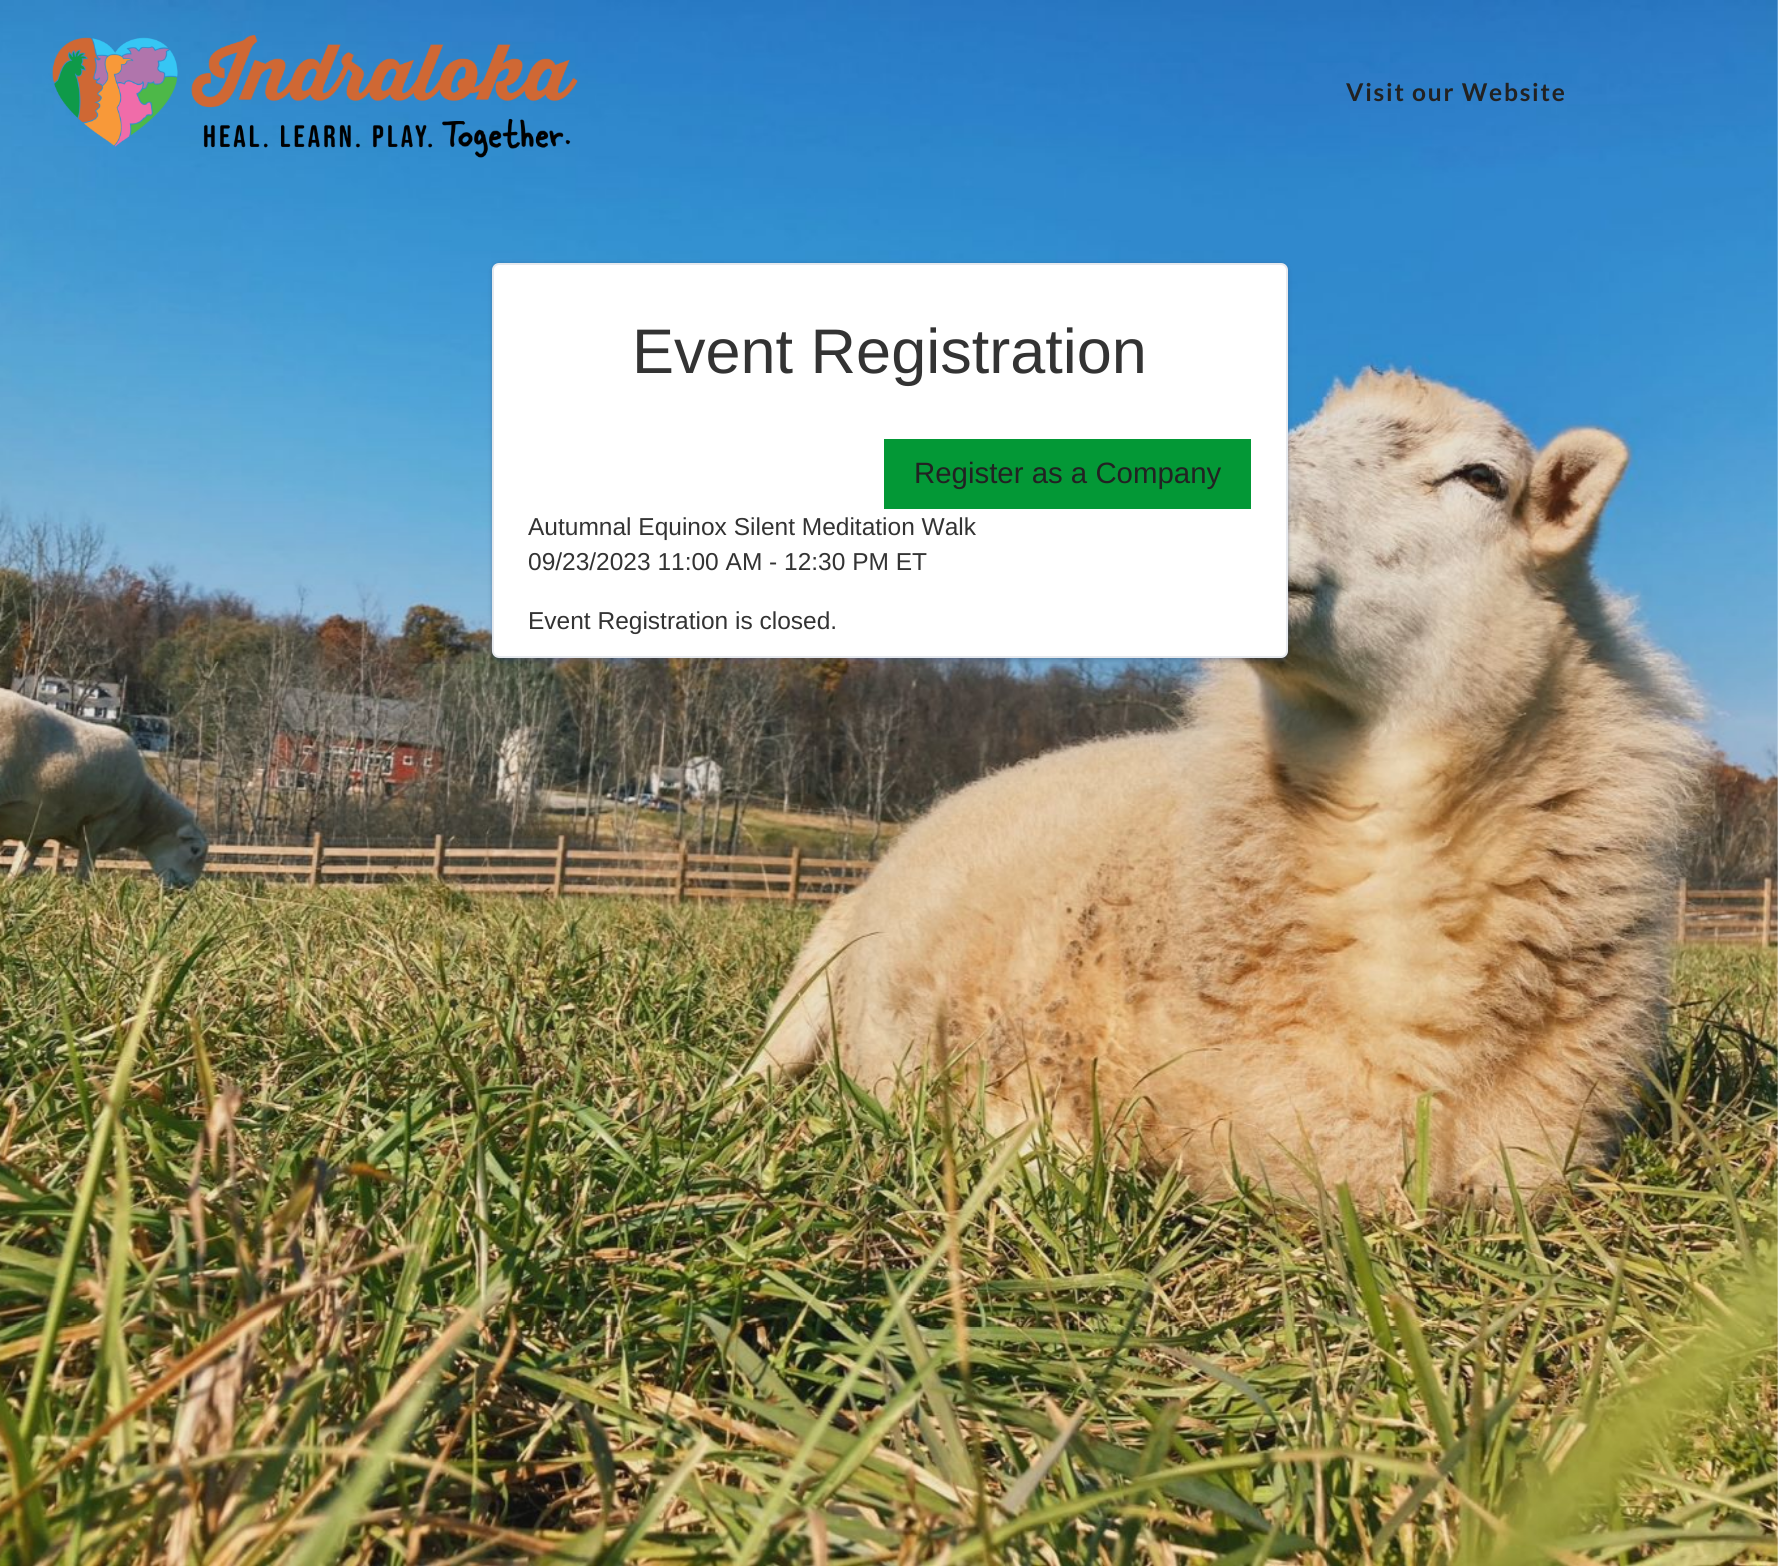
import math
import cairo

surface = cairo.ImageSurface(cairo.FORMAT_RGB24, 1778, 1566)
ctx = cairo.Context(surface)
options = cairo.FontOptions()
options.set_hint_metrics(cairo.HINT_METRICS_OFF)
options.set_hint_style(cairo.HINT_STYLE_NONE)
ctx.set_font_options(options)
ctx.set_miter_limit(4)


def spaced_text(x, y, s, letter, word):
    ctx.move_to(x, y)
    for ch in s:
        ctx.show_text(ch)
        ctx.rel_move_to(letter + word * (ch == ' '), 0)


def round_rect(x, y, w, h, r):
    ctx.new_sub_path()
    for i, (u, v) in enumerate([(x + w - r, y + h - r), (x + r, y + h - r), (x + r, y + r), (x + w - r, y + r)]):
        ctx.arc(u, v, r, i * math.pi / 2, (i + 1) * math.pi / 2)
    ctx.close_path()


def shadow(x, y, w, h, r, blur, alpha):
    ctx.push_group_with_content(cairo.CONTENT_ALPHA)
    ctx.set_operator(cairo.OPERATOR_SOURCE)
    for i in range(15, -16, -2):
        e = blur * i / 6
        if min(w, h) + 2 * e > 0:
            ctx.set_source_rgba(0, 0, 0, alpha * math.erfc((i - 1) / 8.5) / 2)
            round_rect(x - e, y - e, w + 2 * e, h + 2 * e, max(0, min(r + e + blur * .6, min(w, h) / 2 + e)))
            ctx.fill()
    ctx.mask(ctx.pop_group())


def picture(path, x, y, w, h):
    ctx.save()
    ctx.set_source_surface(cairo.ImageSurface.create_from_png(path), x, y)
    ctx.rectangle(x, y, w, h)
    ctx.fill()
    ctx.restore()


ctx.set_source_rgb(1, 1, 1)
ctx.paint()
picture("img1.png", 0, 0, 1778, 1566)
picture("img2.png", 52, 35, 526, 123)
ctx.select_font_face("Lato", cairo.FONT_SLANT_NORMAL, cairo.FONT_WEIGHT_BOLD)
ctx.set_font_size(24.5)
ctx.set_source_rgb(0.133, 0.133, 0.133)
spaced_text(1346, 101, "Visit our Website", 1.75, 0)
ctx.set_source_rgb(0.184, 0.286, 0.459)
shadow(492, 264, 796, 396, 7, 2.5, 0.2)
shadow(492, 266, 796, 396, 7, 2, 0.12)
shadow(492, 263, 796, 395, 7, 2, 0.14)
ctx.set_source_rgb(1, 1, 1)
round_rect(493, 264, 794, 393, 6)
ctx.fill_preserve()
ctx.set_source_rgb(0.902, 0.914, 0.933)
ctx.stroke()
ctx.select_font_face("Liberation Sans")
ctx.set_font_size(63)
ctx.set_source_rgb(0.2, 0.2, 0.2)
ctx.move_to(632, 373)
ctx.show_text("Event Registration")
ctx.set_source_rgb(0.012, 0.596, 0.212)
ctx.rectangle(884, 439, 367, 70)
ctx.fill()
ctx.set_font_size(29.4)
ctx.set_source_rgb(0.133, 0.133, 0.133)
ctx.move_to(914, 483)
ctx.show_text("Register as a Company")
ctx.set_font_size(24.5)
ctx.set_source_rgb(0.2, 0.2, 0.2)
ctx.move_to(528, 535)
ctx.show_text("Autumnal Equinox Silent Meditation Walk")
ctx.move_to(528, 570)
ctx.show_text("09/23/2023 11:00 AM - 12:30 PM ET")
ctx.move_to(528, 629)
ctx.show_text("Event Registration is closed.")
surface.write_to_png("page.png")
